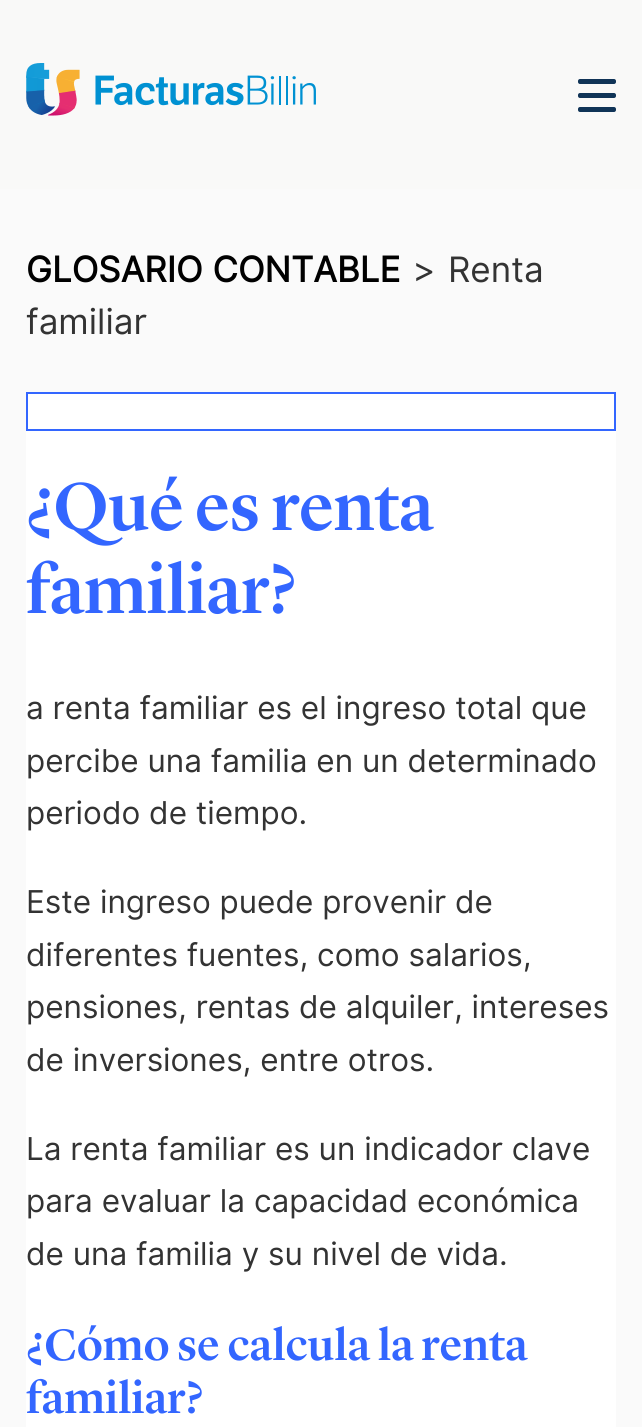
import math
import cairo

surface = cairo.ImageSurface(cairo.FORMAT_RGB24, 642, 1427)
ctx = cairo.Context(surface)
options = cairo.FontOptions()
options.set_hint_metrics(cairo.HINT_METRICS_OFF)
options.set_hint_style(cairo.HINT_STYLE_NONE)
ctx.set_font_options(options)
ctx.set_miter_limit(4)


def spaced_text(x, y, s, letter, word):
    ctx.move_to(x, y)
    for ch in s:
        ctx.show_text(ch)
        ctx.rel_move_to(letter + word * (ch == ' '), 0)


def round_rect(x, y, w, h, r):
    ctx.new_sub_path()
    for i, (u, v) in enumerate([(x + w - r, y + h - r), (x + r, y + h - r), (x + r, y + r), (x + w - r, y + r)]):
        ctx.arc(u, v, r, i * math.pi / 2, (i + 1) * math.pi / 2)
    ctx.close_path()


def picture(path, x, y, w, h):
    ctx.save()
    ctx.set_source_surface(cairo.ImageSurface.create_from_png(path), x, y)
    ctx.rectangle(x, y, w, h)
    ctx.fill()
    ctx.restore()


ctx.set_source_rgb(0.98, 0.98, 0.98)
ctx.paint()
ctx.set_source_rgb(0.976, 0.973, 0.969)
ctx.rectangle(0, 0, 642, 189)
ctx.fill()
picture("img1.png", 26, 63, 290, 53)
ctx.set_source_rgb(0.063, 0.204, 0.341)
round_rect(578, 79, 38, 5, 2)
ctx.fill()
round_rect(578, 93, 38, 5, 2)
ctx.fill()
round_rect(578, 107, 38, 5, 2)
ctx.fill()
ctx.select_font_face("Inter", cairo.FONT_SLANT_NORMAL, cairo.FONT_WEIGHT_BOLD)
ctx.set_font_size(35)
ctx.set_source_rgb(0, 0, 0)
ctx.move_to(26, 282)
ctx.show_text("GLOSARIO CONTABLE")
ctx.select_font_face("Inter")
ctx.set_source_rgb(0.2, 0.2, 0.2)
ctx.move_to(413, 282)
ctx.show_text(">")
ctx.move_to(448, 282)
ctx.show_text("Renta")
ctx.move_to(26, 334)
ctx.show_text("familiar")
ctx.set_source_rgb(1, 1, 1)
ctx.rectangle(26, 394, 590, 1033)
ctx.fill()
ctx.rectangle(27, 393, 588, 37)
ctx.set_source_rgb(0.2, 0.4, 1)
ctx.stroke()
ctx.select_font_face("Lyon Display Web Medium")
ctx.set_font_size(70)
spaced_text(26, 530, "¿Qué es renta", -0.3, 0)
spaced_text(26, 613, "familiar?", -0.3, 0)
ctx.select_font_face("Inter")
ctx.set_font_size(31.5)
ctx.set_source_rgb(0.2, 0.2, 0.2)
ctx.move_to(26, 719)
ctx.show_text("a renta familiar es el ingreso total que")
ctx.move_to(26, 772)
ctx.show_text("percibe una familia en un determinado")
ctx.move_to(26, 824)
ctx.show_text("periodo de tiempo.")
ctx.move_to(26, 913)
ctx.show_text("Este ingreso puede provenir de")
ctx.move_to(26, 966)
ctx.show_text("diferentes fuentes, como salarios,")
ctx.move_to(26, 1018)
ctx.show_text("pensiones, rentas de alquiler, intereses")
ctx.move_to(26, 1071)
ctx.show_text("de inversiones, entre otros.")
ctx.move_to(26, 1160)
ctx.show_text("La renta familiar es un indicador clave")
ctx.move_to(26, 1212)
ctx.show_text("para evaluar la capacidad económica")
ctx.move_to(26, 1265)
ctx.show_text("de una familia y su nivel de vida.")
ctx.select_font_face("Lyon Display Web Medium")
ctx.set_font_size(45.5)
ctx.set_source_rgb(0.2, 0.4, 1)
ctx.move_to(26, 1360)
ctx.show_text("¿Cómo se calcula la renta")
ctx.move_to(26, 1413)
ctx.show_text("familiar?")
surface.write_to_png("page.png")
